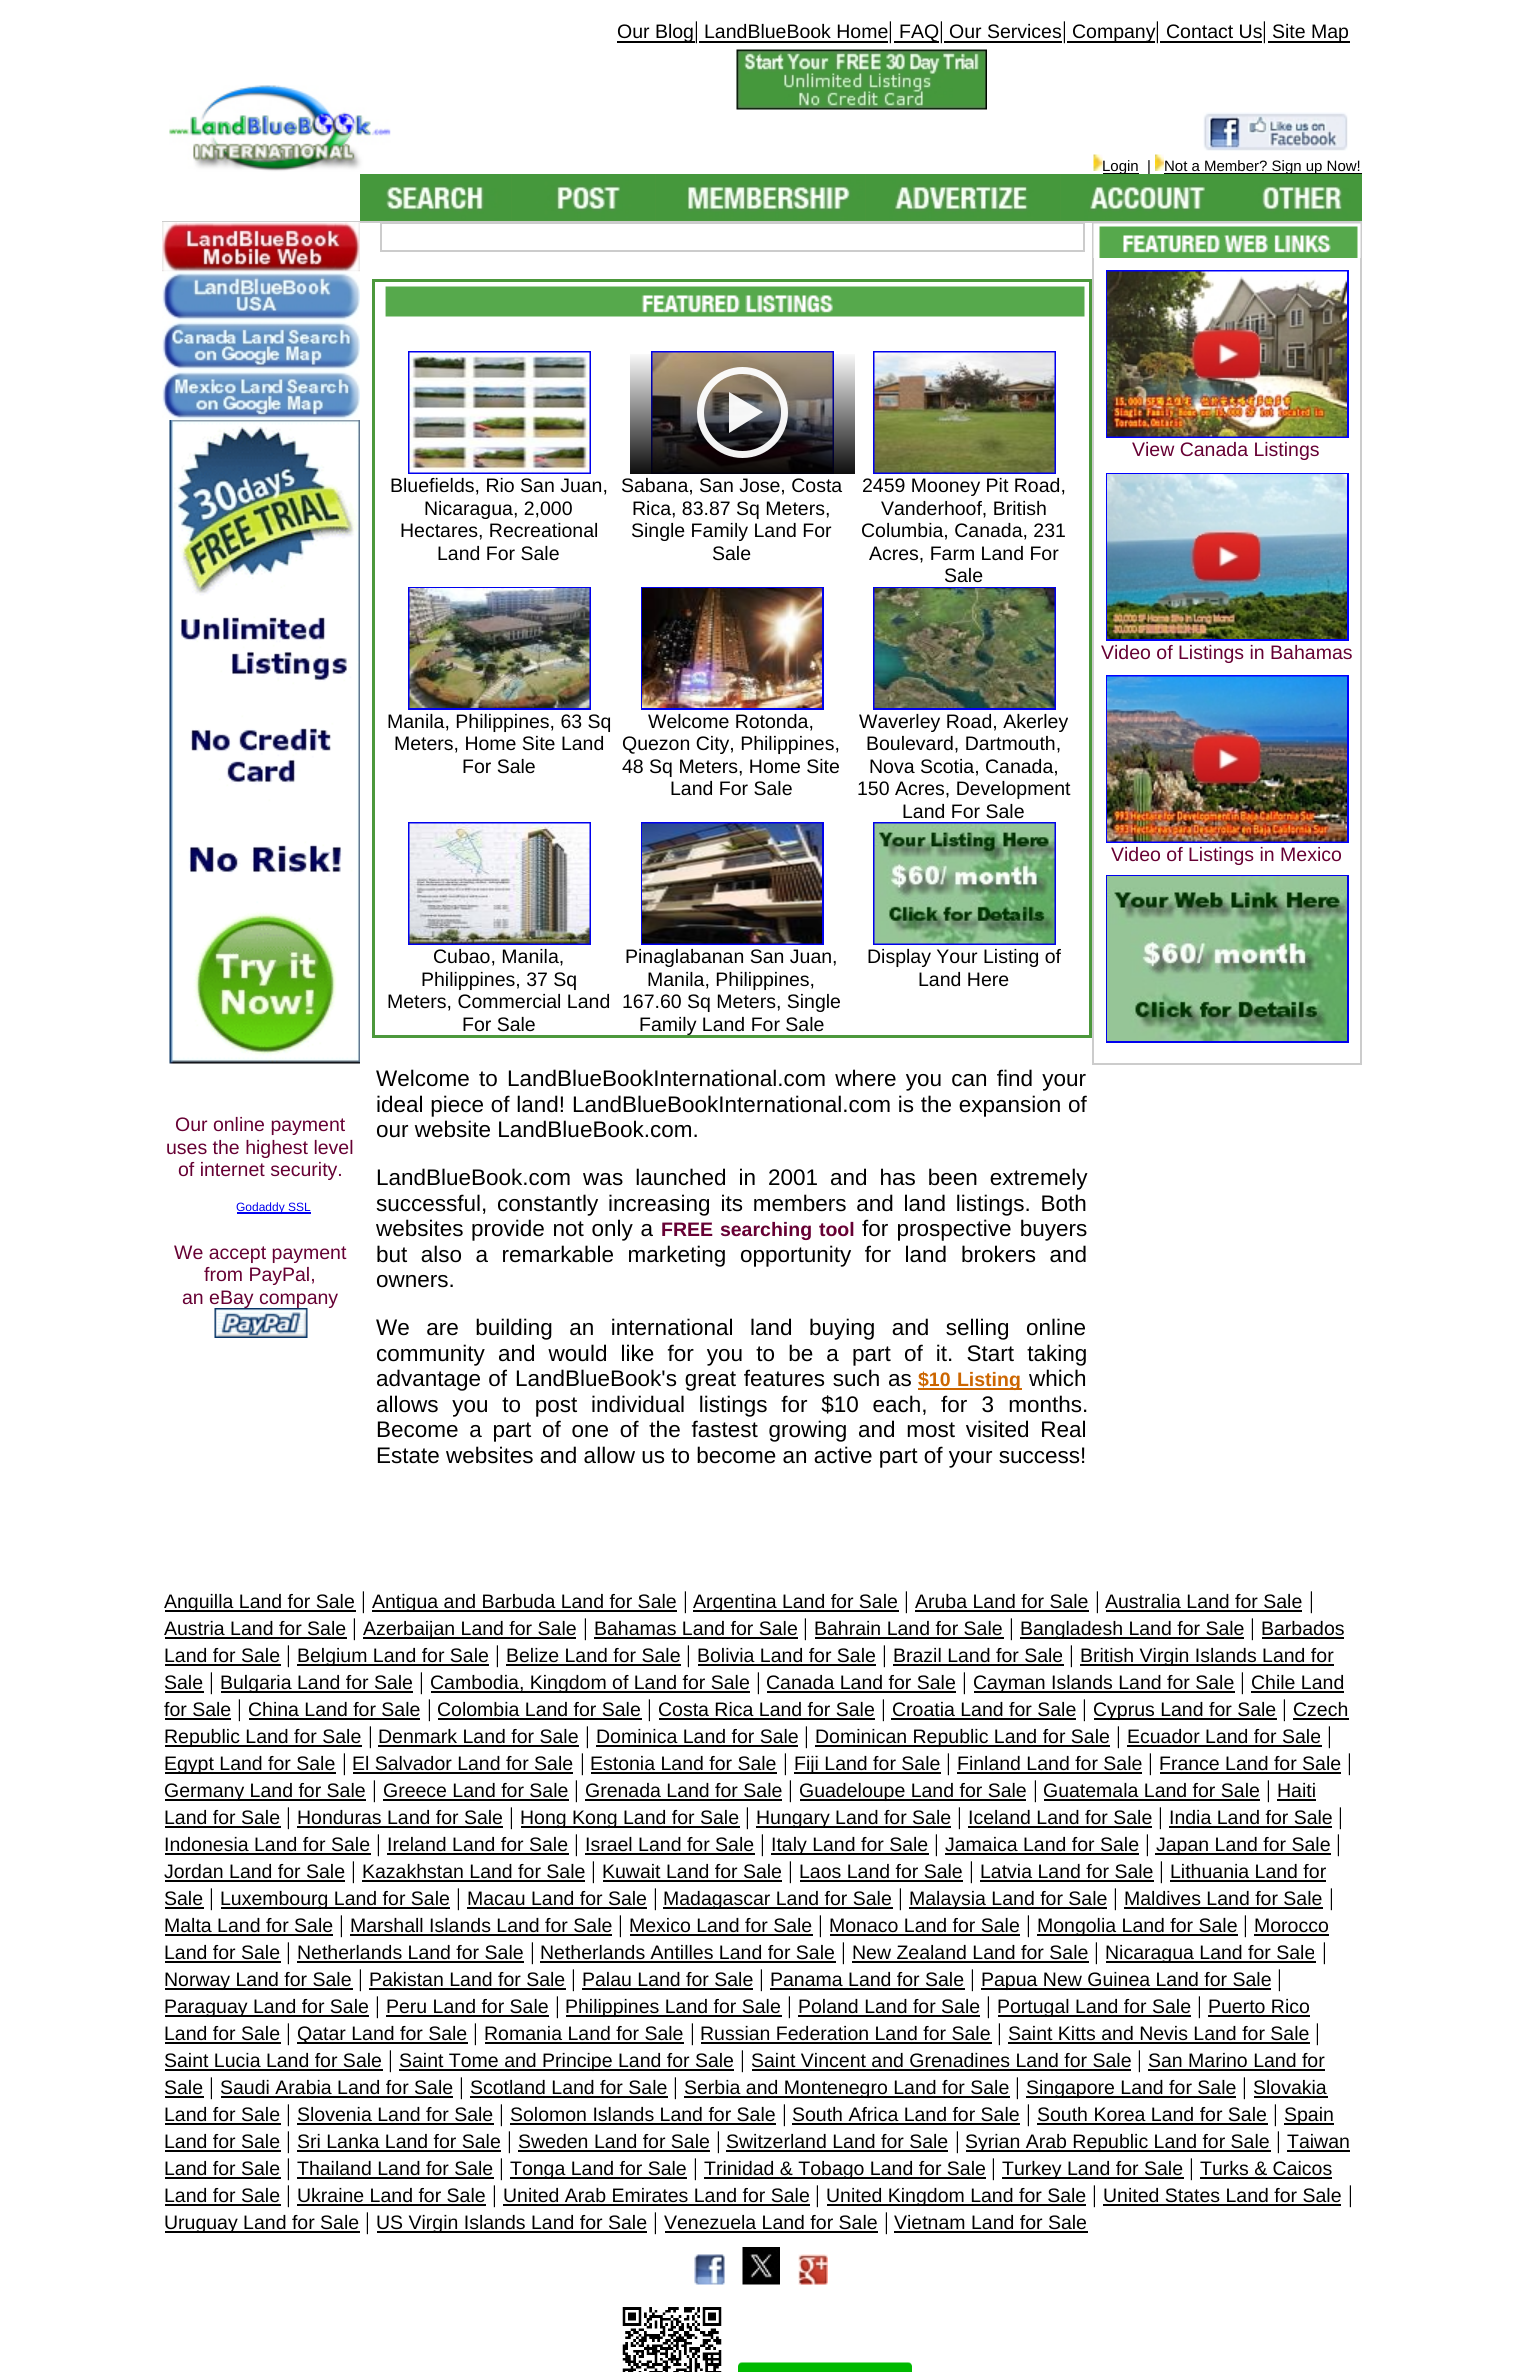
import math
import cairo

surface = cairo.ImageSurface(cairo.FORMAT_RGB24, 1522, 2372)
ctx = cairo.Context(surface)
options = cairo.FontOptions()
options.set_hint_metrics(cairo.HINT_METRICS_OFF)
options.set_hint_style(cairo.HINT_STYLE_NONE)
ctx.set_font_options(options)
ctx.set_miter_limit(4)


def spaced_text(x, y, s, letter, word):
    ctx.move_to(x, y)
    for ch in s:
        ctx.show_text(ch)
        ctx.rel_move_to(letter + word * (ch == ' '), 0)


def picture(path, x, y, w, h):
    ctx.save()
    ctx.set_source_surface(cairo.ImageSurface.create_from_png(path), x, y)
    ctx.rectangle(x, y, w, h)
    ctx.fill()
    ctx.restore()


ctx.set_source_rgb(1, 1, 1)
ctx.paint()
picture("img1.png", 169, 85, 222, 87)
ctx.set_source_rgb(0, 0, 0)
ctx.rectangle(617, 41, 78, 2)
ctx.fill()
ctx.select_font_face("Liberation Sans")
ctx.set_font_size(19.5)
ctx.move_to(617, 38)
ctx.show_text("Our Blog")
ctx.select_font_face("Liberation Serif")
ctx.set_font_size(24)
ctx.move_to(694, 38)
ctx.show_text("|")
ctx.select_font_face("Liberation Sans")
ctx.set_font_size(19.5)
ctx.move_to(704, 38)
ctx.show_text("LandBlueBook Home")
ctx.rectangle(699, 41, 189, 2)
ctx.fill()
ctx.select_font_face("Liberation Serif")
ctx.set_font_size(24)
ctx.move_to(888, 38)
ctx.show_text("|")
ctx.rectangle(894, 41, 45, 2)
ctx.fill()
ctx.select_font_face("Liberation Sans")
ctx.set_font_size(19.5)
ctx.move_to(899, 38)
ctx.show_text("FAQ")
ctx.select_font_face("Liberation Serif")
ctx.set_font_size(24)
ctx.move_to(939, 38)
ctx.show_text("|")
ctx.select_font_face("Liberation Sans")
ctx.set_font_size(19.5)
ctx.move_to(949, 38)
ctx.show_text("Our Services")
ctx.rectangle(944, 41, 118, 2)
ctx.fill()
ctx.select_font_face("Liberation Serif")
ctx.set_font_size(24)
ctx.move_to(1062, 38)
ctx.show_text("|")
ctx.rectangle(1067, 41, 88, 2)
ctx.fill()
ctx.select_font_face("Liberation Sans")
ctx.set_font_size(19.5)
ctx.move_to(1072, 38)
ctx.show_text("Company")
ctx.select_font_face("Liberation Serif")
ctx.set_font_size(24)
ctx.move_to(1155, 38)
ctx.show_text("|")
ctx.select_font_face("Liberation Sans")
ctx.set_font_size(19.5)
ctx.move_to(1166, 38)
ctx.show_text("Contact Us")
ctx.rectangle(1160, 41, 102, 2)
ctx.fill()
ctx.select_font_face("Liberation Serif")
ctx.set_font_size(24)
ctx.move_to(1262, 38)
ctx.show_text("|")
ctx.rectangle(1268, 41, 82, 2)
ctx.fill()
ctx.select_font_face("Liberation Sans")
ctx.set_font_size(19.5)
ctx.move_to(1272, 38)
ctx.show_text("Site Map")
picture("img2.png", 736, 49, 251, 61)
picture("img3.png", 1203, 112, 145, 39)
picture("img4.png", 1093, 154, 10, 17)
ctx.rectangle(1103, 173, 36, 1)
ctx.fill()
ctx.set_source_rgb(0.298, 0.596, 0.235)
ctx.rectangle(360, 174, 1002, 47)
ctx.fill()
ctx.set_font_size(15)
ctx.set_source_rgb(0, 0, 0)
ctx.move_to(1102, 171)
ctx.show_text("Login")
ctx.move_to(1147, 171)
ctx.show_text("|")
picture("img5.png", 1155, 154, 9, 17)
ctx.rectangle(1164, 173, 198, 1)
ctx.fill()
ctx.move_to(1164, 171)
ctx.show_text("Not a Member? Sign up Now!")
picture("img6.png", 360, 174, 152, 47)
picture("img7.png", 512, 174, 144, 47)
picture("img8.png", 656, 174, 210, 47)
picture("img9.png", 866, 174, 195, 47)
picture("img10.png", 1061, 174, 169, 47)
picture("img11.png", 1230, 174, 132, 47)
ctx.set_source_rgb(0.8, 0.8, 0.8)
ctx.rectangle(162, 221, 1200, 2)
ctx.fill()
picture("img12.png", 162, 222, 198, 50)
picture("img13.png", 162, 271, 198, 50)
picture("img14.png", 162, 321, 198, 50)
picture("img15.png", 162, 371, 198, 49)
picture("img16.png", 169, 420, 191, 644)
ctx.set_font_size(19.5)
ctx.set_source_rgb(0.4, 0, 0.2)
ctx.move_to(175, 1131)
ctx.show_text("Our online payment")
ctx.move_to(166, 1154)
ctx.show_text("uses the highest level")
ctx.move_to(178, 1176)
ctx.show_text("of internet security.")
ctx.set_source_rgb(0, 0, 0.933)
ctx.rectangle(237, 1212, 74, 2)
ctx.fill()
ctx.set_font_size(12)
ctx.move_to(236, 1211)
ctx.show_text("Godaddy SSL")
ctx.set_font_size(19.5)
ctx.set_source_rgb(0.4, 0, 0.2)
ctx.move_to(174, 1259)
ctx.show_text("We accept payment")
ctx.move_to(204, 1281)
ctx.show_text("from PayPal,")
ctx.move_to(182, 1304)
ctx.show_text("an eBay company")
picture("img17.png", 214, 1308, 94, 30)
ctx.rectangle(381, 223, 703, 28)
ctx.set_source_rgb(0.8, 0.8, 0.8)
ctx.stroke()
ctx.rectangle(373.5, 280.5, 717, 756)
ctx.set_source_rgb(0.298, 0.596, 0.235)
ctx.set_line_width(3)
ctx.stroke()
picture("img18.png", 385, 286, 700, 31)
ctx.rectangle(409, 352, 181, 121)
ctx.set_source_rgb(0, 0, 0.933)
ctx.set_line_width(2)
ctx.stroke()
picture("img19.png", 409, 352, 181, 121)
ctx.set_source_rgb(0, 0, 0)
ctx.move_to(390, 492)
ctx.show_text("Bluefields, Rio San Juan,")
ctx.move_to(424, 515)
ctx.show_text("Nicaragua, 2,000")
ctx.move_to(400, 537)
ctx.show_text("Hectares, Recreational")
ctx.move_to(437, 560)
ctx.show_text("Land For Sale")
ctx.rectangle(652, 352, 181, 121)
ctx.set_source_rgb(0, 0, 0.933)
ctx.stroke()
picture("img20.png", 652, 352, 181, 121)
gradient = cairo.LinearGradient(743, 351, 743, 474)
gradient.add_color_stop_rgba(0, 0, 0, 0, 0)
gradient.add_color_stop_rgba(1, 0, 0, 0, 0.95)
ctx.set_source(gradient)
ctx.rectangle(630, 354, 225, 120)
ctx.fill()
ctx.arc(742.5, 412.5, 42, 0, 2 * math.pi)
ctx.set_source_rgba(1, 1, 1, 0.95)
ctx.set_line_width(7)
ctx.stroke()
ctx.new_path()
ctx.move_to(729, 392)
ctx.line_to(729, 433)
ctx.line_to(763, 412)
ctx.close_path()
ctx.fill()
ctx.set_source_rgb(0, 0, 0)
ctx.move_to(621, 492)
ctx.show_text("Sabana, San Jose, Costa")
ctx.move_to(632, 515)
ctx.show_text("Rica, 83.87 Sq Meters,")
ctx.move_to(631, 537)
ctx.show_text("Single Family Land For")
ctx.move_to(712, 560)
ctx.show_text("Sale")
ctx.rectangle(874, 352, 181, 121)
ctx.set_source_rgb(0, 0, 0.933)
ctx.set_line_width(2)
ctx.stroke()
picture("img21.png", 874, 352, 181, 121)
ctx.set_source_rgb(0, 0, 0)
ctx.move_to(862, 492)
ctx.show_text("2459 Mooney Pit Road,")
ctx.move_to(881, 515)
ctx.show_text("Vanderhoof, British")
ctx.move_to(861, 537)
ctx.show_text("Columbia, Canada, 231")
ctx.move_to(869, 560)
ctx.show_text("Acres, Farm Land For")
ctx.move_to(944, 582)
ctx.show_text("Sale")
ctx.rectangle(409, 588, 181, 121)
ctx.set_source_rgb(0, 0, 0.933)
ctx.stroke()
picture("img22.png", 409, 588, 181, 120)
ctx.set_source_rgb(0, 0, 0)
ctx.move_to(387, 728)
ctx.show_text("Manila, Philippines, 63 Sq")
ctx.move_to(394, 750)
ctx.show_text("Meters, Home Site Land")
ctx.move_to(462, 773)
ctx.show_text("For Sale")
ctx.rectangle(642, 588, 181, 121)
ctx.set_source_rgb(0, 0, 0.933)
ctx.stroke()
picture("img23.png", 642, 588, 180, 120)
ctx.set_source_rgb(0, 0, 0)
ctx.move_to(648, 728)
ctx.show_text("Welcome Rotonda,")
ctx.move_to(622, 750)
ctx.show_text("Quezon City, Philippines,")
ctx.move_to(622, 773)
ctx.show_text("48 Sq Meters, Home Site")
ctx.move_to(670, 795)
ctx.show_text("Land For Sale")
ctx.rectangle(874, 588, 181, 121)
ctx.set_source_rgb(0, 0, 0.933)
ctx.stroke()
picture("img24.png", 874, 588, 181, 120)
ctx.set_source_rgb(0, 0, 0)
ctx.move_to(859, 728)
ctx.show_text("Waverley Road, Akerley")
ctx.move_to(866, 750)
ctx.show_text("Boulevard, Dartmouth,")
ctx.move_to(869, 773)
ctx.show_text("Nova Scotia, Canada,")
ctx.move_to(857, 795)
ctx.show_text("150 Acres, Development")
ctx.move_to(902, 818)
ctx.show_text("Land For Sale")
ctx.rectangle(409, 823, 181, 121)
ctx.set_source_rgb(0, 0, 0.933)
ctx.stroke()
picture("img25.png", 409, 823, 181, 121)
ctx.set_source_rgb(0, 0, 0)
ctx.move_to(433, 963)
ctx.show_text("Cubao, Manila,")
ctx.move_to(421, 986)
ctx.show_text("Philippines, 37 Sq")
ctx.move_to(387, 1008)
ctx.show_text("Meters, Commercial Land")
ctx.move_to(462, 1031)
ctx.show_text("For Sale")
ctx.rectangle(642, 823, 181, 121)
ctx.set_source_rgb(0, 0, 0.933)
ctx.stroke()
picture("img26.png", 642, 823, 180, 121)
ctx.set_source_rgb(0, 0, 0)
ctx.move_to(625, 963)
ctx.show_text("Pinaglabanan San Juan,")
ctx.move_to(647, 986)
ctx.show_text("Manila, Philippines,")
ctx.move_to(622, 1008)
ctx.show_text("167.60 Sq Meters, Single")
ctx.move_to(639, 1031)
ctx.show_text("Family Land For Sale")
ctx.rectangle(874, 823, 181, 121)
ctx.set_source_rgb(0, 0, 0.933)
ctx.stroke()
picture("img27.png", 874, 823, 181, 121)
ctx.set_source_rgb(0, 0, 0)
ctx.move_to(867, 963)
ctx.show_text("Display Your Listing of")
ctx.move_to(918, 986)
ctx.show_text("Land Here")
ctx.set_font_size(22.5)
spaced_text(376, 1086, "Welcome to", 0, 3)
spaced_text(507, 1086, "LandBlueBookInternational.com where you can find your", 0, 3)
spaced_text(376, 1112, "ideal piece of land!", 0, 0.5)
spaced_text(572, 1112, "LandBlueBookInternational.com is the expansion of", 0, 0.5)
ctx.move_to(376, 1137)
ctx.show_text("our website LandBlueBook.com.")
spaced_text(376, 1185, "LandBlueBook.com was launched in 2001 and has been extremely", 0, 5.75)
spaced_text(376, 1211, "successful, constantly increasing its members and land listings. Both", 0, 3.5)
ctx.move_to(376, 1236)
ctx.show_text("websites")
spaced_text(471, 1236, "provide not only a", 0, 1.5)
ctx.select_font_face("Liberation Sans", cairo.FONT_SLANT_NORMAL, cairo.FONT_WEIGHT_BOLD)
ctx.set_font_size(19.5)
ctx.set_source_rgb(0.4, 0, 0.2)
spaced_text(661, 1236, "FREE searching tool", 0, 1.5)
ctx.select_font_face("Liberation Sans")
ctx.set_font_size(22.5)
ctx.set_source_rgb(0, 0, 0)
spaced_text(862, 1236, "for prospective buyers", 0, 2)
spaced_text(376, 1262, "but also a remarkable marketing opportunity for land", 0, 7.25)
spaced_text(961, 1262, "brokers and", 0, 7.25)
ctx.move_to(376, 1287)
ctx.show_text("owners.")
spaced_text(376, 1335, "We are building an international land buying and selling online", 0, 10.25)
spaced_text(376, 1361, "community and would like for you to be a part of it. Start taking", 0, 6.9)
spaced_text(376, 1386, "advantage of", 0, 1)
spaced_text(515, 1386, "LandBlueBook's great features such as", 0, 1.5)
ctx.set_source_rgb(0.8, 0.4, 0)
ctx.rectangle(918, 1388, 104, 2)
ctx.fill()
ctx.select_font_face("Liberation Sans", cairo.FONT_SLANT_NORMAL, cairo.FONT_WEIGHT_BOLD)
ctx.set_font_size(19.5)
spaced_text(918, 1386, "$10 Listing", 0, 1)
ctx.select_font_face("Liberation Sans")
ctx.set_font_size(22.5)
ctx.set_source_rgb(0, 0, 0)
ctx.move_to(1029, 1386)
ctx.show_text("which")
spaced_text(376, 1412, "allows you to post individual listings for $10 each,", 0, 7.5)
spaced_text(941, 1412, "for 3 months.", 0, 8)
spaced_text(376, 1437, "Become a part of one of the fastest growing and most visited Real", 0, 4.5)
ctx.move_to(376, 1463)
ctx.show_text("Estate websites and allow us to become an active part of your success!")
ctx.rectangle(1093, 223, 268, 841)
ctx.set_source_rgb(0.8, 0.8, 0.8)
ctx.stroke()
picture("img28.png", 1093, 223, 268, 35)
ctx.rectangle(1107, 271, 241, 166)
ctx.set_source_rgb(0, 0, 1)
ctx.stroke()
picture("img29.png", 1107, 271, 240, 166)
ctx.set_font_size(19.5)
ctx.set_source_rgb(0.4, 0, 0.2)
ctx.move_to(1132, 456)
ctx.show_text("View Canada Listings")
ctx.rectangle(1107, 474, 241, 166)
ctx.set_source_rgb(0, 0, 1)
ctx.stroke()
picture("img30.png", 1107, 474, 240, 165)
ctx.set_source_rgb(0.4, 0, 0.2)
ctx.move_to(1101, 659)
ctx.show_text("Video of Listings in Bahamas")
ctx.rectangle(1107, 676, 241, 166)
ctx.set_source_rgb(0, 0, 1)
ctx.stroke()
picture("img31.png", 1107, 676, 240, 166)
ctx.set_source_rgb(0.4, 0, 0.2)
ctx.move_to(1111, 861)
ctx.show_text("Video of Listings in Mexico")
ctx.rectangle(1107, 876, 241, 166)
ctx.set_source_rgb(0, 0, 0.933)
ctx.stroke()
picture("img32.png", 1107, 876, 240, 165)
ctx.set_source_rgb(0, 0, 0)
ctx.rectangle(165, 1610, 191, 2)
ctx.fill()
ctx.move_to(164, 1608)
ctx.show_text("Anguilla Land for Sale")
ctx.select_font_face("Liberation Serif")
ctx.set_font_size(24)
ctx.move_to(361, 1608)
ctx.show_text("|")
ctx.rectangle(372, 1610, 305, 2)
ctx.fill()
ctx.select_font_face("Liberation Sans")
ctx.set_font_size(19.5)
ctx.move_to(372, 1608)
ctx.show_text("Antigua and Barbuda Land for Sale")
ctx.select_font_face("Liberation Serif")
ctx.set_font_size(24)
ctx.move_to(683, 1608)
ctx.show_text("|")
ctx.rectangle(693, 1610, 206, 2)
ctx.fill()
ctx.select_font_face("Liberation Sans")
ctx.set_font_size(19.5)
ctx.move_to(693, 1608)
ctx.show_text("Argentina Land for Sale")
ctx.select_font_face("Liberation Serif")
ctx.set_font_size(24)
ctx.move_to(904, 1608)
ctx.show_text("|")
ctx.select_font_face("Liberation Sans")
ctx.set_font_size(19.5)
ctx.move_to(915, 1608)
ctx.show_text("Aruba Land for Sale")
ctx.rectangle(915, 1610, 174, 2)
ctx.fill()
ctx.select_font_face("Liberation Serif")
ctx.set_font_size(24)
ctx.move_to(1095, 1608)
ctx.show_text("|")
ctx.select_font_face("Liberation Sans")
ctx.set_font_size(19.5)
ctx.move_to(1105, 1608)
ctx.show_text("Australia Land for Sale")
ctx.rectangle(1106, 1610, 196, 2)
ctx.fill()
ctx.select_font_face("Liberation Serif")
ctx.set_font_size(24)
ctx.move_to(1309, 1608)
ctx.show_text("|")
ctx.select_font_face("Liberation Sans")
ctx.set_font_size(19.5)
ctx.move_to(164, 1635)
ctx.show_text("Austria Land for Sale")
ctx.rectangle(165, 1637, 182, 2)
ctx.fill()
ctx.select_font_face("Liberation Serif")
ctx.set_font_size(24)
ctx.move_to(352, 1635)
ctx.show_text("|")
ctx.rectangle(363, 1637, 213, 2)
ctx.fill()
ctx.select_font_face("Liberation Sans")
ctx.set_font_size(19.5)
ctx.move_to(363, 1635)
ctx.show_text("Azerbaijan Land for Sale")
ctx.select_font_face("Liberation Serif")
ctx.set_font_size(24)
ctx.move_to(583, 1635)
ctx.show_text("|")
ctx.select_font_face("Liberation Sans")
ctx.set_font_size(19.5)
ctx.move_to(594, 1635)
ctx.show_text("Bahamas Land for Sale")
ctx.rectangle(594, 1637, 204, 2)
ctx.fill()
ctx.select_font_face("Liberation Serif")
ctx.set_font_size(24)
ctx.move_to(803, 1635)
ctx.show_text("|")
ctx.select_font_face("Liberation Sans")
ctx.set_font_size(19.5)
ctx.move_to(814, 1635)
ctx.show_text("Bahrain Land for Sale")
ctx.rectangle(815, 1637, 189, 2)
ctx.fill()
ctx.select_font_face("Liberation Serif")
ctx.set_font_size(24)
ctx.move_to(1009, 1635)
ctx.show_text("|")
ctx.rectangle(1020, 1637, 224, 2)
ctx.fill()
ctx.select_font_face("Liberation Sans")
ctx.set_font_size(19.5)
ctx.move_to(1020, 1635)
ctx.show_text("Bangladesh Land for Sale")
ctx.select_font_face("Liberation Serif")
ctx.set_font_size(24)
ctx.move_to(1250, 1635)
ctx.show_text("|")
ctx.select_font_face("Liberation Sans")
ctx.set_font_size(19.5)
ctx.move_to(1261, 1635)
ctx.show_text("Barbados")
ctx.rectangle(1262, 1637, 82, 2)
ctx.fill()
ctx.move_to(164, 1662)
ctx.show_text("Land for Sale")
ctx.rectangle(165, 1664, 116, 2)
ctx.fill()
ctx.select_font_face("Liberation Serif")
ctx.set_font_size(24)
ctx.move_to(286, 1662)
ctx.show_text("|")
ctx.rectangle(297, 1664, 192, 2)
ctx.fill()
ctx.select_font_face("Liberation Sans")
ctx.set_font_size(19.5)
ctx.move_to(297, 1662)
ctx.show_text("Belgium Land for Sale")
ctx.select_font_face("Liberation Serif")
ctx.set_font_size(24)
ctx.move_to(495, 1662)
ctx.show_text("|")
ctx.select_font_face("Liberation Sans")
ctx.set_font_size(19.5)
ctx.move_to(506, 1662)
ctx.show_text("Belize Land for Sale")
ctx.rectangle(506, 1664, 175, 2)
ctx.fill()
ctx.select_font_face("Liberation Serif")
ctx.set_font_size(24)
ctx.move_to(686, 1662)
ctx.show_text("|")
ctx.select_font_face("Liberation Sans")
ctx.set_font_size(19.5)
ctx.move_to(697, 1662)
ctx.show_text("Bolivia Land for Sale")
ctx.rectangle(698, 1664, 178, 2)
ctx.fill()
ctx.select_font_face("Liberation Serif")
ctx.set_font_size(24)
ctx.move_to(882, 1662)
ctx.show_text("|")
ctx.select_font_face("Liberation Sans")
ctx.set_font_size(19.5)
ctx.move_to(893, 1662)
ctx.show_text("Brazil Land for Sale")
ctx.rectangle(893, 1664, 171, 2)
ctx.fill()
ctx.select_font_face("Liberation Serif")
ctx.set_font_size(24)
ctx.move_to(1069, 1662)
ctx.show_text("|")
ctx.rectangle(1080, 1664, 254, 2)
ctx.fill()
ctx.select_font_face("Liberation Sans")
ctx.set_font_size(19.5)
ctx.move_to(1080, 1662)
ctx.show_text("British Virgin Islands Land for")
ctx.move_to(164, 1689)
ctx.show_text("Sale")
ctx.rectangle(165, 1691, 39, 2)
ctx.fill()
ctx.select_font_face("Liberation Serif")
ctx.set_font_size(24)
ctx.move_to(209, 1689)
ctx.show_text("|")
ctx.rectangle(221, 1691, 192, 2)
ctx.fill()
ctx.select_font_face("Liberation Sans")
ctx.set_font_size(19.5)
ctx.move_to(220, 1689)
ctx.show_text("Bulgaria Land for Sale")
ctx.select_font_face("Liberation Serif")
ctx.set_font_size(24)
ctx.move_to(419, 1689)
ctx.show_text("|")
ctx.rectangle(431, 1691, 319, 2)
ctx.fill()
ctx.select_font_face("Liberation Sans")
ctx.set_font_size(19.5)
ctx.move_to(430, 1689)
ctx.show_text("Cambodia, Kingdom of Land for Sale")
ctx.select_font_face("Liberation Serif")
ctx.set_font_size(24)
ctx.move_to(756, 1689)
ctx.show_text("|")
ctx.select_font_face("Liberation Sans")
ctx.set_font_size(19.5)
ctx.move_to(766, 1689)
ctx.show_text("Canada Land for Sale")
ctx.rectangle(767, 1691, 189, 2)
ctx.fill()
ctx.select_font_face("Liberation Serif")
ctx.set_font_size(24)
ctx.move_to(962, 1689)
ctx.show_text("|")
ctx.rectangle(974, 1691, 261, 2)
ctx.fill()
ctx.select_font_face("Liberation Sans")
ctx.set_font_size(19.5)
ctx.move_to(973, 1689)
ctx.show_text("Cayman Islands Land for Sale")
ctx.select_font_face("Liberation Serif")
ctx.set_font_size(24)
ctx.move_to(1240, 1689)
ctx.show_text("|")
ctx.select_font_face("Liberation Sans")
ctx.set_font_size(19.5)
ctx.move_to(1251, 1689)
ctx.show_text("Chile Land")
ctx.rectangle(1251, 1691, 93, 2)
ctx.fill()
ctx.move_to(164, 1716)
ctx.show_text("for Sale")
ctx.rectangle(165, 1718, 66, 2)
ctx.fill()
ctx.select_font_face("Liberation Serif")
ctx.set_font_size(24)
ctx.move_to(237, 1716)
ctx.show_text("|")
ctx.select_font_face("Liberation Sans")
ctx.set_font_size(19.5)
ctx.move_to(248, 1716)
ctx.show_text("China Land for Sale")
ctx.rectangle(249, 1718, 171, 2)
ctx.fill()
ctx.select_font_face("Liberation Serif")
ctx.set_font_size(24)
ctx.move_to(427, 1716)
ctx.show_text("|")
ctx.select_font_face("Liberation Sans")
ctx.set_font_size(19.5)
ctx.move_to(437, 1716)
ctx.show_text("Colombia Land for Sale")
ctx.rectangle(438, 1718, 204, 2)
ctx.fill()
ctx.select_font_face("Liberation Serif")
ctx.set_font_size(24)
ctx.move_to(647, 1716)
ctx.show_text("|")
ctx.select_font_face("Liberation Sans")
ctx.set_font_size(19.5)
ctx.move_to(658, 1716)
ctx.show_text("Costa Rica Land for Sale")
ctx.rectangle(659, 1718, 216, 2)
ctx.fill()
ctx.select_font_face("Liberation Serif")
ctx.set_font_size(24)
ctx.move_to(881, 1716)
ctx.show_text("|")
ctx.select_font_face("Liberation Sans")
ctx.set_font_size(19.5)
ctx.move_to(892, 1716)
ctx.show_text("Croatia Land for Sale")
ctx.rectangle(891, 1718, 185, 2)
ctx.fill()
ctx.select_font_face("Liberation Serif")
ctx.set_font_size(24)
ctx.move_to(1082, 1716)
ctx.show_text("|")
ctx.rectangle(1094, 1718, 183, 2)
ctx.fill()
ctx.select_font_face("Liberation Sans")
ctx.set_font_size(19.5)
ctx.move_to(1093, 1716)
ctx.show_text("Cyprus Land for Sale")
ctx.select_font_face("Liberation Serif")
ctx.set_font_size(24)
ctx.move_to(1282, 1716)
ctx.show_text("|")
ctx.select_font_face("Liberation Sans")
ctx.set_font_size(19.5)
ctx.move_to(1293, 1716)
ctx.show_text("Czech")
ctx.rectangle(1293, 1718, 56, 2)
ctx.fill()
ctx.rectangle(165, 1745, 197, 2)
ctx.fill()
ctx.move_to(164, 1743)
ctx.show_text("Republic Land for Sale")
ctx.select_font_face("Liberation Serif")
ctx.set_font_size(24)
ctx.move_to(368, 1743)
ctx.show_text("|")
ctx.select_font_face("Liberation Sans")
ctx.set_font_size(19.5)
ctx.move_to(378, 1743)
ctx.show_text("Denmark Land for Sale")
ctx.rectangle(378, 1745, 201, 2)
ctx.fill()
ctx.select_font_face("Liberation Serif")
ctx.set_font_size(24)
ctx.move_to(585, 1743)
ctx.show_text("|")
ctx.select_font_face("Liberation Sans")
ctx.set_font_size(19.5)
ctx.move_to(596, 1743)
ctx.show_text("Dominica Land for Sale")
ctx.rectangle(596, 1745, 202, 2)
ctx.fill()
ctx.select_font_face("Liberation Serif")
ctx.set_font_size(24)
ctx.move_to(804, 1743)
ctx.show_text("|")
ctx.rectangle(815, 1745, 295, 2)
ctx.fill()
ctx.select_font_face("Liberation Sans")
ctx.set_font_size(19.5)
ctx.move_to(815, 1743)
ctx.show_text("Dominican Republic Land for Sale")
ctx.select_font_face("Liberation Serif")
ctx.set_font_size(24)
ctx.move_to(1116, 1743)
ctx.show_text("|")
ctx.select_font_face("Liberation Sans")
ctx.set_font_size(19.5)
ctx.move_to(1127, 1743)
ctx.show_text("Ecuador Land for Sale")
ctx.rectangle(1127, 1745, 195, 2)
ctx.fill()
ctx.select_font_face("Liberation Serif")
ctx.set_font_size(24)
ctx.move_to(1327, 1743)
ctx.show_text("|")
ctx.rectangle(165, 1772, 171, 2)
ctx.fill()
ctx.select_font_face("Liberation Sans")
ctx.set_font_size(19.5)
ctx.move_to(164, 1770)
ctx.show_text("Egypt Land for Sale")
ctx.select_font_face("Liberation Serif")
ctx.set_font_size(24)
ctx.move_to(342, 1770)
ctx.show_text("|")
ctx.select_font_face("Liberation Sans")
ctx.set_font_size(19.5)
ctx.move_to(352, 1770)
ctx.show_text("El Salvador Land for Sale")
ctx.rectangle(353, 1772, 220, 2)
ctx.fill()
ctx.select_font_face("Liberation Serif")
ctx.set_font_size(24)
ctx.move_to(580, 1770)
ctx.show_text("|")
ctx.select_font_face("Liberation Sans")
ctx.set_font_size(19.5)
ctx.move_to(590, 1770)
ctx.show_text("Estonia Land for Sale")
ctx.rectangle(591, 1772, 186, 2)
ctx.fill()
ctx.select_font_face("Liberation Serif")
ctx.set_font_size(24)
ctx.move_to(783, 1770)
ctx.show_text("|")
ctx.rectangle(794, 1772, 147, 2)
ctx.fill()
ctx.select_font_face("Liberation Sans")
ctx.set_font_size(19.5)
ctx.move_to(794, 1770)
ctx.show_text("Fiji Land for Sale")
ctx.select_font_face("Liberation Serif")
ctx.set_font_size(24)
ctx.move_to(946, 1770)
ctx.show_text("|")
ctx.select_font_face("Liberation Sans")
ctx.set_font_size(19.5)
ctx.move_to(957, 1770)
ctx.show_text("Finland Land for Sale")
ctx.rectangle(957, 1772, 185, 2)
ctx.fill()
ctx.select_font_face("Liberation Serif")
ctx.set_font_size(24)
ctx.move_to(1148, 1770)
ctx.show_text("|")
ctx.select_font_face("Liberation Sans")
ctx.set_font_size(19.5)
ctx.move_to(1159, 1770)
ctx.show_text("France Land for Sale")
ctx.rectangle(1160, 1772, 181, 2)
ctx.fill()
ctx.select_font_face("Liberation Serif")
ctx.set_font_size(24)
ctx.move_to(1347, 1770)
ctx.show_text("|")
ctx.rectangle(165, 1799, 201, 2)
ctx.fill()
ctx.select_font_face("Liberation Sans")
ctx.set_font_size(19.5)
ctx.move_to(164, 1797)
ctx.show_text("Germany Land for Sale")
ctx.select_font_face("Liberation Serif")
ctx.set_font_size(24)
ctx.move_to(372, 1797)
ctx.show_text("|")
ctx.select_font_face("Liberation Sans")
ctx.set_font_size(19.5)
ctx.move_to(383, 1797)
ctx.show_text("Greece Land for Sale")
ctx.rectangle(383, 1799, 186, 2)
ctx.fill()
ctx.select_font_face("Liberation Serif")
ctx.set_font_size(24)
ctx.move_to(574, 1797)
ctx.show_text("|")
ctx.select_font_face("Liberation Sans")
ctx.set_font_size(19.5)
ctx.move_to(585, 1797)
ctx.show_text("Grenada Land for Sale")
ctx.rectangle(585, 1799, 197, 2)
ctx.fill()
ctx.select_font_face("Liberation Serif")
ctx.set_font_size(24)
ctx.move_to(788, 1797)
ctx.show_text("|")
ctx.rectangle(800, 1799, 226, 2)
ctx.fill()
ctx.select_font_face("Liberation Sans")
ctx.set_font_size(19.5)
ctx.move_to(799, 1797)
ctx.show_text("Guadeloupe Land for Sale")
ctx.select_font_face("Liberation Serif")
ctx.set_font_size(24)
ctx.move_to(1033, 1797)
ctx.show_text("|")
ctx.select_font_face("Liberation Sans")
ctx.set_font_size(19.5)
ctx.move_to(1043, 1797)
ctx.show_text("Guatemala Land for Sale")
ctx.rectangle(1044, 1799, 216, 2)
ctx.fill()
ctx.select_font_face("Liberation Serif")
ctx.set_font_size(24)
ctx.move_to(1266, 1797)
ctx.show_text("|")
ctx.select_font_face("Liberation Sans")
ctx.set_font_size(19.5)
ctx.move_to(1277, 1797)
ctx.show_text("Haiti")
ctx.rectangle(1277, 1799, 39, 2)
ctx.fill()
ctx.move_to(164, 1824)
ctx.show_text("Land for Sale")
ctx.rectangle(165, 1826, 116, 2)
ctx.fill()
ctx.select_font_face("Liberation Serif")
ctx.set_font_size(24)
ctx.move_to(286, 1824)
ctx.show_text("|")
ctx.select_font_face("Liberation Sans")
ctx.set_font_size(19.5)
ctx.move_to(297, 1824)
ctx.show_text("Honduras Land for Sale")
ctx.rectangle(297, 1826, 206, 2)
ctx.fill()
ctx.select_font_face("Liberation Serif")
ctx.set_font_size(24)
ctx.move_to(509, 1824)
ctx.show_text("|")
ctx.rectangle(521, 1826, 219, 2)
ctx.fill()
ctx.select_font_face("Liberation Sans")
ctx.set_font_size(19.5)
ctx.move_to(520, 1824)
ctx.show_text("Hong Kong Land for Sale")
ctx.select_font_face("Liberation Serif")
ctx.set_font_size(24)
ctx.move_to(745, 1824)
ctx.show_text("|")
ctx.rectangle(756, 1826, 195, 2)
ctx.fill()
ctx.select_font_face("Liberation Sans")
ctx.set_font_size(19.5)
ctx.move_to(756, 1824)
ctx.show_text("Hungary Land for Sale")
ctx.select_font_face("Liberation Serif")
ctx.set_font_size(24)
ctx.move_to(957, 1824)
ctx.show_text("|")
ctx.select_font_face("Liberation Sans")
ctx.set_font_size(19.5)
ctx.move_to(968, 1824)
ctx.show_text("Iceland Land for Sale")
ctx.rectangle(968, 1826, 184, 2)
ctx.fill()
ctx.select_font_face("Liberation Serif")
ctx.set_font_size(24)
ctx.move_to(1158, 1824)
ctx.show_text("|")
ctx.select_font_face("Liberation Sans")
ctx.set_font_size(19.5)
ctx.move_to(1169, 1824)
ctx.show_text("India Land for Sale")
ctx.rectangle(1169, 1826, 163, 2)
ctx.fill()
ctx.select_font_face("Liberation Serif")
ctx.set_font_size(24)
ctx.move_to(1338, 1824)
ctx.show_text("|")
ctx.select_font_face("Liberation Sans")
ctx.set_font_size(19.5)
ctx.move_to(164, 1851)
ctx.show_text("Indonesia Land for Sale")
ctx.rectangle(165, 1853, 206, 2)
ctx.fill()
ctx.select_font_face("Liberation Serif")
ctx.set_font_size(24)
ctx.move_to(376, 1851)
ctx.show_text("|")
ctx.select_font_face("Liberation Sans")
ctx.set_font_size(19.5)
ctx.move_to(387, 1851)
ctx.show_text("Ireland Land for Sale")
ctx.rectangle(387, 1853, 182, 2)
ctx.fill()
ctx.select_font_face("Liberation Serif")
ctx.set_font_size(24)
ctx.move_to(574, 1851)
ctx.show_text("|")
ctx.select_font_face("Liberation Sans")
ctx.set_font_size(19.5)
ctx.move_to(585, 1851)
ctx.show_text("Israel Land for Sale")
ctx.rectangle(585, 1853, 170, 2)
ctx.fill()
ctx.select_font_face("Liberation Serif")
ctx.set_font_size(24)
ctx.move_to(760, 1851)
ctx.show_text("|")
ctx.rectangle(771, 1853, 158, 2)
ctx.fill()
ctx.select_font_face("Liberation Sans")
ctx.set_font_size(19.5)
ctx.move_to(771, 1851)
ctx.show_text("Italy Land for Sale")
ctx.select_font_face("Liberation Serif")
ctx.set_font_size(24)
ctx.move_to(934, 1851)
ctx.show_text("|")
ctx.select_font_face("Liberation Sans")
ctx.set_font_size(19.5)
ctx.move_to(945, 1851)
ctx.show_text("Jamaica Land for Sale")
ctx.rectangle(945, 1853, 194, 2)
ctx.fill()
ctx.select_font_face("Liberation Serif")
ctx.set_font_size(24)
ctx.move_to(1145, 1851)
ctx.show_text("|")
ctx.rectangle(1155, 1853, 176, 2)
ctx.fill()
ctx.select_font_face("Liberation Sans")
ctx.set_font_size(19.5)
ctx.move_to(1156, 1851)
ctx.show_text("Japan Land for Sale")
ctx.select_font_face("Liberation Serif")
ctx.set_font_size(24)
ctx.move_to(1336, 1851)
ctx.show_text("|")
ctx.select_font_face("Liberation Sans")
ctx.set_font_size(19.5)
ctx.move_to(164, 1878)
ctx.show_text("Jordan Land for Sale")
ctx.rectangle(165, 1880, 180, 2)
ctx.fill()
ctx.select_font_face("Liberation Serif")
ctx.set_font_size(24)
ctx.move_to(351, 1878)
ctx.show_text("|")
ctx.select_font_face("Liberation Sans")
ctx.set_font_size(19.5)
ctx.move_to(362, 1878)
ctx.show_text("Kazakhstan Land for Sale")
ctx.rectangle(362, 1880, 223, 2)
ctx.fill()
ctx.select_font_face("Liberation Serif")
ctx.set_font_size(24)
ctx.move_to(591, 1878)
ctx.show_text("|")
ctx.select_font_face("Liberation Sans")
ctx.set_font_size(19.5)
ctx.move_to(602, 1878)
ctx.show_text("Kuwait Land for Sale")
ctx.rectangle(603, 1880, 179, 2)
ctx.fill()
ctx.select_font_face("Liberation Serif")
ctx.set_font_size(24)
ctx.move_to(788, 1878)
ctx.show_text("|")
ctx.select_font_face("Liberation Sans")
ctx.set_font_size(19.5)
ctx.move_to(799, 1878)
ctx.show_text("Laos Land for Sale")
ctx.rectangle(800, 1880, 163, 2)
ctx.fill()
ctx.select_font_face("Liberation Serif")
ctx.set_font_size(24)
ctx.move_to(969, 1878)
ctx.show_text("|")
ctx.select_font_face("Liberation Sans")
ctx.set_font_size(19.5)
ctx.move_to(980, 1878)
ctx.show_text("Latvia Land for Sale")
ctx.rectangle(980, 1880, 174, 2)
ctx.fill()
ctx.select_font_face("Liberation Serif")
ctx.set_font_size(24)
ctx.move_to(1159, 1878)
ctx.show_text("|")
ctx.select_font_face("Liberation Sans")
ctx.set_font_size(19.5)
ctx.move_to(1170, 1878)
ctx.show_text("Lithuania Land for")
ctx.rectangle(1170, 1880, 156, 2)
ctx.fill()
ctx.move_to(164, 1905)
ctx.show_text("Sale")
ctx.rectangle(165, 1907, 39, 2)
ctx.fill()
ctx.select_font_face("Liberation Serif")
ctx.set_font_size(24)
ctx.move_to(209, 1905)
ctx.show_text("|")
ctx.rectangle(221, 1907, 229, 2)
ctx.fill()
ctx.select_font_face("Liberation Sans")
ctx.set_font_size(19.5)
ctx.move_to(220, 1905)
ctx.show_text("Luxembourg Land for Sale")
ctx.select_font_face("Liberation Serif")
ctx.set_font_size(24)
ctx.move_to(456, 1905)
ctx.show_text("|")
ctx.select_font_face("Liberation Sans")
ctx.set_font_size(19.5)
ctx.move_to(467, 1905)
ctx.show_text("Macau Land for Sale")
ctx.rectangle(467, 1907, 180, 2)
ctx.fill()
ctx.select_font_face("Liberation Serif")
ctx.set_font_size(24)
ctx.move_to(653, 1905)
ctx.show_text("|")
ctx.rectangle(663, 1907, 230, 2)
ctx.fill()
ctx.select_font_face("Liberation Sans")
ctx.set_font_size(19.5)
ctx.move_to(663, 1905)
ctx.show_text("Madagascar Land for Sale")
ctx.select_font_face("Liberation Serif")
ctx.set_font_size(24)
ctx.move_to(898, 1905)
ctx.show_text("|")
ctx.rectangle(909, 1907, 198, 2)
ctx.fill()
ctx.select_font_face("Liberation Sans")
ctx.set_font_size(19.5)
ctx.move_to(909, 1905)
ctx.show_text("Malaysia Land for Sale")
ctx.select_font_face("Liberation Serif")
ctx.set_font_size(24)
ctx.move_to(1113, 1905)
ctx.show_text("|")
ctx.select_font_face("Liberation Sans")
ctx.set_font_size(19.5)
ctx.move_to(1124, 1905)
ctx.show_text("Maldives Land for Sale")
ctx.rectangle(1124, 1907, 199, 2)
ctx.fill()
ctx.select_font_face("Liberation Serif")
ctx.set_font_size(24)
ctx.move_to(1329, 1905)
ctx.show_text("|")
ctx.select_font_face("Liberation Sans")
ctx.set_font_size(19.5)
ctx.move_to(164, 1932)
ctx.show_text("Malta Land for Sale")
ctx.rectangle(165, 1934, 168, 2)
ctx.fill()
ctx.select_font_face("Liberation Serif")
ctx.set_font_size(24)
ctx.move_to(339, 1932)
ctx.show_text("|")
ctx.select_font_face("Liberation Sans")
ctx.set_font_size(19.5)
ctx.move_to(350, 1932)
ctx.show_text("Marshall Islands Land for Sale")
ctx.rectangle(350, 1934, 262, 2)
ctx.fill()
ctx.select_font_face("Liberation Serif")
ctx.set_font_size(24)
ctx.move_to(618, 1932)
ctx.show_text("|")
ctx.select_font_face("Liberation Sans")
ctx.set_font_size(19.5)
ctx.move_to(629, 1932)
ctx.show_text("Mexico Land for Sale")
ctx.rectangle(630, 1934, 183, 2)
ctx.fill()
ctx.select_font_face("Liberation Serif")
ctx.set_font_size(24)
ctx.move_to(818, 1932)
ctx.show_text("|")
ctx.select_font_face("Liberation Sans")
ctx.set_font_size(19.5)
ctx.move_to(829, 1932)
ctx.show_text("Monaco Land for Sale")
ctx.rectangle(830, 1934, 190, 2)
ctx.fill()
ctx.select_font_face("Liberation Serif")
ctx.set_font_size(24)
ctx.move_to(1026, 1932)
ctx.show_text("|")
ctx.rectangle(1037, 1934, 201, 2)
ctx.fill()
ctx.select_font_face("Liberation Sans")
ctx.set_font_size(19.5)
ctx.move_to(1037, 1932)
ctx.show_text("Mongolia Land for Sale")
ctx.select_font_face("Liberation Serif")
ctx.set_font_size(24)
ctx.move_to(1243, 1932)
ctx.show_text("|")
ctx.select_font_face("Liberation Sans")
ctx.set_font_size(19.5)
ctx.move_to(1254, 1932)
ctx.show_text("Morocco")
ctx.rectangle(1254, 1934, 75, 2)
ctx.fill()
ctx.move_to(164, 1959)
ctx.show_text("Land for Sale")
ctx.rectangle(165, 1961, 116, 2)
ctx.fill()
ctx.select_font_face("Liberation Serif")
ctx.set_font_size(24)
ctx.move_to(286, 1959)
ctx.show_text("|")
ctx.select_font_face("Liberation Sans")
ctx.set_font_size(19.5)
ctx.move_to(297, 1959)
ctx.show_text("Netherlands Land for Sale")
ctx.rectangle(297, 1961, 227, 2)
ctx.fill()
ctx.select_font_face("Liberation Serif")
ctx.set_font_size(24)
ctx.move_to(530, 1959)
ctx.show_text("|")
ctx.select_font_face("Liberation Sans")
ctx.set_font_size(19.5)
ctx.move_to(540, 1959)
ctx.show_text("Netherlands Antilles Land for Sale")
ctx.rectangle(540, 1961, 296, 2)
ctx.fill()
ctx.select_font_face("Liberation Serif")
ctx.set_font_size(24)
ctx.move_to(841, 1959)
ctx.show_text("|")
ctx.select_font_face("Liberation Sans")
ctx.set_font_size(19.5)
ctx.move_to(852, 1959)
ctx.show_text("New Zealand Land for Sale")
ctx.rectangle(852, 1961, 237, 2)
ctx.fill()
ctx.select_font_face("Liberation Serif")
ctx.set_font_size(24)
ctx.move_to(1094, 1959)
ctx.show_text("|")
ctx.rectangle(1106, 1961, 210, 2)
ctx.fill()
ctx.select_font_face("Liberation Sans")
ctx.set_font_size(19.5)
ctx.move_to(1105, 1959)
ctx.show_text("Nicaragua Land for Sale")
ctx.select_font_face("Liberation Serif")
ctx.set_font_size(24)
ctx.move_to(1322, 1959)
ctx.show_text("|")
ctx.rectangle(165, 1988, 188, 2)
ctx.fill()
ctx.select_font_face("Liberation Sans")
ctx.set_font_size(19.5)
ctx.move_to(164, 1986)
ctx.show_text("Norway Land for Sale")
ctx.select_font_face("Liberation Serif")
ctx.set_font_size(24)
ctx.move_to(358, 1986)
ctx.show_text("|")
ctx.select_font_face("Liberation Sans")
ctx.set_font_size(19.5)
ctx.move_to(369, 1986)
ctx.show_text("Pakistan Land for Sale")
ctx.rectangle(369, 1988, 197, 2)
ctx.fill()
ctx.select_font_face("Liberation Serif")
ctx.set_font_size(24)
ctx.move_to(571, 1986)
ctx.show_text("|")
ctx.select_font_face("Liberation Sans")
ctx.set_font_size(19.5)
ctx.move_to(582, 1986)
ctx.show_text("Palau Land for Sale")
ctx.rectangle(582, 1988, 171, 2)
ctx.fill()
ctx.select_font_face("Liberation Serif")
ctx.set_font_size(24)
ctx.move_to(759, 1986)
ctx.show_text("|")
ctx.select_font_face("Liberation Sans")
ctx.set_font_size(19.5)
ctx.move_to(770, 1986)
ctx.show_text("Panama Land for Sale")
ctx.rectangle(770, 1988, 195, 2)
ctx.fill()
ctx.select_font_face("Liberation Serif")
ctx.set_font_size(24)
ctx.move_to(970, 1986)
ctx.show_text("|")
ctx.rectangle(981, 1988, 290, 2)
ctx.fill()
ctx.select_font_face("Liberation Sans")
ctx.set_font_size(19.5)
ctx.move_to(981, 1986)
ctx.show_text("Papua New Guinea Land for Sale")
ctx.select_font_face("Liberation Serif")
ctx.set_font_size(24)
ctx.move_to(1277, 1986)
ctx.show_text("|")
ctx.rectangle(165, 2015, 204, 2)
ctx.fill()
ctx.select_font_face("Liberation Sans")
ctx.set_font_size(19.5)
ctx.move_to(164, 2013)
ctx.show_text("Paraguay Land for Sale")
ctx.select_font_face("Liberation Serif")
ctx.set_font_size(24)
ctx.move_to(375, 2013)
ctx.show_text("|")
ctx.select_font_face("Liberation Sans")
ctx.set_font_size(19.5)
ctx.move_to(386, 2013)
ctx.show_text("Peru Land for Sale")
ctx.rectangle(386, 2015, 163, 2)
ctx.fill()
ctx.select_font_face("Liberation Serif")
ctx.set_font_size(24)
ctx.move_to(555, 2013)
ctx.show_text("|")
ctx.rectangle(566, 2015, 216, 2)
ctx.fill()
ctx.select_font_face("Liberation Sans")
ctx.set_font_size(19.5)
ctx.move_to(565, 2013)
ctx.show_text("Philippines Land for Sale")
ctx.select_font_face("Liberation Serif")
ctx.set_font_size(24)
ctx.move_to(787, 2013)
ctx.show_text("|")
ctx.select_font_face("Liberation Sans")
ctx.set_font_size(19.5)
ctx.move_to(798, 2013)
ctx.show_text("Poland Land for Sale")
ctx.rectangle(798, 2015, 182, 2)
ctx.fill()
ctx.select_font_face("Liberation Serif")
ctx.set_font_size(24)
ctx.move_to(986, 2013)
ctx.show_text("|")
ctx.rectangle(998, 2015, 193, 2)
ctx.fill()
ctx.select_font_face("Liberation Sans")
ctx.set_font_size(19.5)
ctx.move_to(997, 2013)
ctx.show_text("Portugal Land for Sale")
ctx.select_font_face("Liberation Serif")
ctx.set_font_size(24)
ctx.move_to(1197, 2013)
ctx.show_text("|")
ctx.select_font_face("Liberation Sans")
ctx.set_font_size(19.5)
ctx.move_to(1208, 2013)
ctx.show_text("Puerto Rico")
ctx.rectangle(1208, 2015, 102, 2)
ctx.fill()
ctx.move_to(164, 2040)
ctx.show_text("Land for Sale")
ctx.rectangle(165, 2042, 116, 2)
ctx.fill()
ctx.select_font_face("Liberation Serif")
ctx.set_font_size(24)
ctx.move_to(286, 2040)
ctx.show_text("|")
ctx.rectangle(297, 2042, 171, 2)
ctx.fill()
ctx.select_font_face("Liberation Sans")
ctx.set_font_size(19.5)
ctx.move_to(297, 2040)
ctx.show_text("Qatar Land for Sale")
ctx.select_font_face("Liberation Serif")
ctx.set_font_size(24)
ctx.move_to(473, 2040)
ctx.show_text("|")
ctx.select_font_face("Liberation Sans")
ctx.set_font_size(19.5)
ctx.move_to(484, 2040)
ctx.show_text("Romania Land for Sale")
ctx.rectangle(485, 2042, 199, 2)
ctx.fill()
ctx.select_font_face("Liberation Serif")
ctx.set_font_size(24)
ctx.move_to(690, 2040)
ctx.show_text("|")
ctx.select_font_face("Liberation Sans")
ctx.set_font_size(19.5)
ctx.move_to(700, 2040)
ctx.show_text("Russian Federation Land for Sale")
ctx.rectangle(701, 2042, 291, 2)
ctx.fill()
ctx.select_font_face("Liberation Serif")
ctx.set_font_size(24)
ctx.move_to(997, 2040)
ctx.show_text("|")
ctx.select_font_face("Liberation Sans")
ctx.set_font_size(19.5)
ctx.move_to(1008, 2040)
ctx.show_text("Saint Kitts and Nevis Land for Sale")
ctx.rectangle(1008, 2042, 302, 2)
ctx.fill()
ctx.select_font_face("Liberation Serif")
ctx.set_font_size(24)
ctx.move_to(1315, 2040)
ctx.show_text("|")
ctx.select_font_face("Liberation Sans")
ctx.set_font_size(19.5)
ctx.move_to(164, 2067)
ctx.show_text("Saint Lucia Land for Sale")
ctx.rectangle(165, 2069, 218, 2)
ctx.fill()
ctx.select_font_face("Liberation Serif")
ctx.set_font_size(24)
ctx.move_to(388, 2067)
ctx.show_text("|")
ctx.rectangle(399, 2069, 335, 2)
ctx.fill()
ctx.select_font_face("Liberation Sans")
ctx.set_font_size(19.5)
ctx.move_to(399, 2067)
ctx.show_text("Saint Tome and Principe Land for Sale")
ctx.select_font_face("Liberation Serif")
ctx.set_font_size(24)
ctx.move_to(740, 2067)
ctx.show_text("|")
ctx.select_font_face("Liberation Sans")
ctx.set_font_size(19.5)
ctx.move_to(751, 2067)
ctx.show_text("Saint Vincent and Grenadines Land for Sale")
ctx.rectangle(752, 2069, 379, 2)
ctx.fill()
ctx.select_font_face("Liberation Serif")
ctx.set_font_size(24)
ctx.move_to(1137, 2067)
ctx.show_text("|")
ctx.select_font_face("Liberation Sans")
ctx.set_font_size(19.5)
ctx.move_to(1148, 2067)
ctx.show_text("San Marino Land for")
ctx.rectangle(1148, 2069, 177, 2)
ctx.fill()
ctx.move_to(164, 2094)
ctx.show_text("Sale")
ctx.rectangle(165, 2096, 39, 2)
ctx.fill()
ctx.select_font_face("Liberation Serif")
ctx.set_font_size(24)
ctx.move_to(209, 2094)
ctx.show_text("|")
ctx.select_font_face("Liberation Sans")
ctx.set_font_size(19.5)
ctx.move_to(220, 2094)
ctx.show_text("Saudi Arabia Land for Sale")
ctx.rectangle(221, 2096, 232, 2)
ctx.fill()
ctx.select_font_face("Liberation Serif")
ctx.set_font_size(24)
ctx.move_to(459, 2094)
ctx.show_text("|")
ctx.select_font_face("Liberation Sans")
ctx.set_font_size(19.5)
ctx.move_to(470, 2094)
ctx.show_text("Scotland Land for Sale")
ctx.rectangle(470, 2096, 198, 2)
ctx.fill()
ctx.select_font_face("Liberation Serif")
ctx.set_font_size(24)
ctx.move_to(673, 2094)
ctx.show_text("|")
ctx.rectangle(684, 2096, 326, 2)
ctx.fill()
ctx.select_font_face("Liberation Sans")
ctx.set_font_size(19.5)
ctx.move_to(684, 2094)
ctx.show_text("Serbia and Montenegro Land for Sale")
ctx.select_font_face("Liberation Serif")
ctx.set_font_size(24)
ctx.move_to(1015, 2094)
ctx.show_text("|")
ctx.rectangle(1026, 2096, 210, 2)
ctx.fill()
ctx.select_font_face("Liberation Sans")
ctx.set_font_size(19.5)
ctx.move_to(1026, 2094)
ctx.show_text("Singapore Land for Sale")
ctx.select_font_face("Liberation Serif")
ctx.set_font_size(24)
ctx.move_to(1242, 2094)
ctx.show_text("|")
ctx.select_font_face("Liberation Sans")
ctx.set_font_size(19.5)
ctx.move_to(1253, 2094)
ctx.show_text("Slovakia")
ctx.rectangle(1254, 2096, 74, 2)
ctx.fill()
ctx.move_to(164, 2121)
ctx.show_text("Land for Sale")
ctx.rectangle(165, 2123, 116, 2)
ctx.fill()
ctx.select_font_face("Liberation Serif")
ctx.set_font_size(24)
ctx.move_to(286, 2121)
ctx.show_text("|")
ctx.select_font_face("Liberation Sans")
ctx.set_font_size(19.5)
ctx.move_to(297, 2121)
ctx.show_text("Slovenia Land for Sale")
ctx.rectangle(297, 2123, 197, 2)
ctx.fill()
ctx.select_font_face("Liberation Serif")
ctx.set_font_size(24)
ctx.move_to(499, 2121)
ctx.show_text("|")
ctx.select_font_face("Liberation Sans")
ctx.set_font_size(19.5)
ctx.move_to(510, 2121)
ctx.show_text("Solomon Islands Land for Sale")
ctx.rectangle(510, 2123, 266, 2)
ctx.fill()
ctx.select_font_face("Liberation Serif")
ctx.set_font_size(24)
ctx.move_to(782, 2121)
ctx.show_text("|")
ctx.select_font_face("Liberation Sans")
ctx.set_font_size(19.5)
ctx.move_to(792, 2121)
ctx.show_text("South Africa Land for Sale")
ctx.rectangle(792, 2123, 228, 2)
ctx.fill()
ctx.select_font_face("Liberation Serif")
ctx.set_font_size(24)
ctx.move_to(1026, 2121)
ctx.show_text("|")
ctx.select_font_face("Liberation Sans")
ctx.set_font_size(19.5)
ctx.move_to(1037, 2121)
ctx.show_text("South Korea Land for Sale")
ctx.rectangle(1037, 2123, 231, 2)
ctx.fill()
ctx.select_font_face("Liberation Serif")
ctx.set_font_size(24)
ctx.move_to(1273, 2121)
ctx.show_text("|")
ctx.rectangle(1284, 2123, 50, 2)
ctx.fill()
ctx.select_font_face("Liberation Sans")
ctx.set_font_size(19.5)
ctx.move_to(1284, 2121)
ctx.show_text("Spain")
ctx.move_to(164, 2148)
ctx.show_text("Land for Sale")
ctx.rectangle(165, 2150, 116, 2)
ctx.fill()
ctx.select_font_face("Liberation Serif")
ctx.set_font_size(24)
ctx.move_to(286, 2148)
ctx.show_text("|")
ctx.select_font_face("Liberation Sans")
ctx.set_font_size(19.5)
ctx.move_to(297, 2148)
ctx.show_text("Sri Lanka Land for Sale")
ctx.rectangle(297, 2150, 204, 2)
ctx.fill()
ctx.select_font_face("Liberation Serif")
ctx.set_font_size(24)
ctx.move_to(507, 2148)
ctx.show_text("|")
ctx.select_font_face("Liberation Sans")
ctx.set_font_size(19.5)
ctx.move_to(518, 2148)
ctx.show_text("Sweden Land for Sale")
ctx.rectangle(518, 2150, 192, 2)
ctx.fill()
ctx.select_font_face("Liberation Serif")
ctx.set_font_size(24)
ctx.move_to(716, 2148)
ctx.show_text("|")
ctx.select_font_face("Liberation Sans")
ctx.set_font_size(19.5)
ctx.move_to(726, 2148)
ctx.show_text("Switzerland Land for Sale")
ctx.rectangle(726, 2150, 222, 2)
ctx.fill()
ctx.select_font_face("Liberation Serif")
ctx.set_font_size(24)
ctx.move_to(955, 2148)
ctx.show_text("|")
ctx.rectangle(966, 2150, 305, 2)
ctx.fill()
ctx.select_font_face("Liberation Sans")
ctx.set_font_size(19.5)
ctx.move_to(965, 2148)
ctx.show_text("Syrian Arab Republic Land for Sale")
ctx.select_font_face("Liberation Serif")
ctx.set_font_size(24)
ctx.move_to(1276, 2148)
ctx.show_text("|")
ctx.select_font_face("Liberation Sans")
ctx.set_font_size(19.5)
ctx.move_to(1287, 2148)
ctx.show_text("Taiwan")
ctx.rectangle(1287, 2150, 63, 2)
ctx.fill()
ctx.move_to(164, 2175)
ctx.show_text("Land for Sale")
ctx.rectangle(165, 2177, 116, 2)
ctx.fill()
ctx.select_font_face("Liberation Serif")
ctx.set_font_size(24)
ctx.move_to(286, 2175)
ctx.show_text("|")
ctx.select_font_face("Liberation Sans")
ctx.set_font_size(19.5)
ctx.move_to(297, 2175)
ctx.show_text("Thailand Land for Sale")
ctx.rectangle(297, 2177, 197, 2)
ctx.fill()
ctx.select_font_face("Liberation Serif")
ctx.set_font_size(24)
ctx.move_to(499, 2175)
ctx.show_text("|")
ctx.rectangle(510, 2177, 177, 2)
ctx.fill()
ctx.select_font_face("Liberation Sans")
ctx.set_font_size(19.5)
ctx.move_to(510, 2175)
ctx.show_text("Tonga Land for Sale")
ctx.select_font_face("Liberation Serif")
ctx.set_font_size(24)
ctx.move_to(693, 2175)
ctx.show_text("|")
ctx.rectangle(704, 2177, 282, 2)
ctx.fill()
ctx.select_font_face("Liberation Sans")
ctx.set_font_size(19.5)
ctx.move_to(704, 2175)
ctx.show_text("Trinidad & Tobago Land for Sale")
ctx.select_font_face("Liberation Serif")
ctx.set_font_size(24)
ctx.move_to(991, 2175)
ctx.show_text("|")
ctx.rectangle(1002, 2177, 182, 2)
ctx.fill()
ctx.select_font_face("Liberation Sans")
ctx.set_font_size(19.5)
ctx.move_to(1002, 2175)
ctx.show_text("Turkey Land for Sale")
ctx.select_font_face("Liberation Serif")
ctx.set_font_size(24)
ctx.move_to(1189, 2175)
ctx.show_text("|")
ctx.select_font_face("Liberation Sans")
ctx.set_font_size(19.5)
ctx.move_to(1200, 2175)
ctx.show_text("Turks & Caicos")
ctx.rectangle(1200, 2177, 132, 2)
ctx.fill()
ctx.move_to(164, 2202)
ctx.show_text("Land for Sale")
ctx.rectangle(165, 2204, 116, 2)
ctx.fill()
ctx.select_font_face("Liberation Serif")
ctx.set_font_size(24)
ctx.move_to(286, 2202)
ctx.show_text("|")
ctx.select_font_face("Liberation Sans")
ctx.set_font_size(19.5)
ctx.move_to(297, 2202)
ctx.show_text("Ukraine Land for Sale")
ctx.rectangle(297, 2204, 189, 2)
ctx.fill()
ctx.select_font_face("Liberation Serif")
ctx.set_font_size(24)
ctx.move_to(492, 2202)
ctx.show_text("|")
ctx.select_font_face("Liberation Sans")
ctx.set_font_size(19.5)
ctx.move_to(503, 2202)
ctx.show_text("United Arab Emirates Land for Sale")
ctx.rectangle(503, 2204, 307, 2)
ctx.fill()
ctx.select_font_face("Liberation Serif")
ctx.set_font_size(24)
ctx.move_to(815, 2202)
ctx.show_text("|")
ctx.rectangle(827, 2204, 259, 2)
ctx.fill()
ctx.select_font_face("Liberation Sans")
ctx.set_font_size(19.5)
ctx.move_to(826, 2202)
ctx.show_text("United Kingdom Land for Sale")
ctx.select_font_face("Liberation Serif")
ctx.set_font_size(24)
ctx.move_to(1092, 2202)
ctx.show_text("|")
ctx.select_font_face("Liberation Sans")
ctx.set_font_size(19.5)
ctx.move_to(1103, 2202)
ctx.show_text("United States Land for Sale")
ctx.rectangle(1103, 2204, 238, 2)
ctx.fill()
ctx.select_font_face("Liberation Serif")
ctx.set_font_size(24)
ctx.move_to(1348, 2202)
ctx.show_text("|")
ctx.rectangle(165, 2231, 195, 2)
ctx.fill()
ctx.select_font_face("Liberation Sans")
ctx.set_font_size(19.5)
ctx.move_to(164, 2229)
ctx.show_text("Uruguay Land for Sale")
ctx.select_font_face("Liberation Serif")
ctx.set_font_size(24)
ctx.move_to(365, 2229)
ctx.show_text("|")
ctx.rectangle(377, 2231, 270, 2)
ctx.fill()
ctx.select_font_face("Liberation Sans")
ctx.set_font_size(19.5)
ctx.move_to(376, 2229)
ctx.show_text("US Virgin Islands Land for Sale")
ctx.select_font_face("Liberation Serif")
ctx.set_font_size(24)
ctx.move_to(653, 2229)
ctx.show_text("|")
ctx.select_font_face("Liberation Sans")
ctx.set_font_size(19.5)
ctx.move_to(664, 2229)
ctx.show_text("Venezuela Land for Sale")
ctx.rectangle(665, 2231, 213, 2)
ctx.fill()
ctx.select_font_face("Liberation Serif")
ctx.set_font_size(24)
ctx.move_to(884, 2229)
ctx.show_text("|")
ctx.select_font_face("Liberation Sans")
ctx.set_font_size(19.5)
ctx.move_to(894, 2229)
ctx.show_text("Vietnam Land for Sale")
ctx.rectangle(894, 2231, 194, 2)
ctx.fill()
picture("img33.png", 694, 2254, 31, 31)
picture("img34.png", 742, 2247, 38, 38)
picture("img35.png", 798, 2254, 30, 31)
picture("img36.png", 622, 2307, 100, 65)
picture("img37.png", 738, 2362, 174, 10)
surface.write_to_png("page.png")
